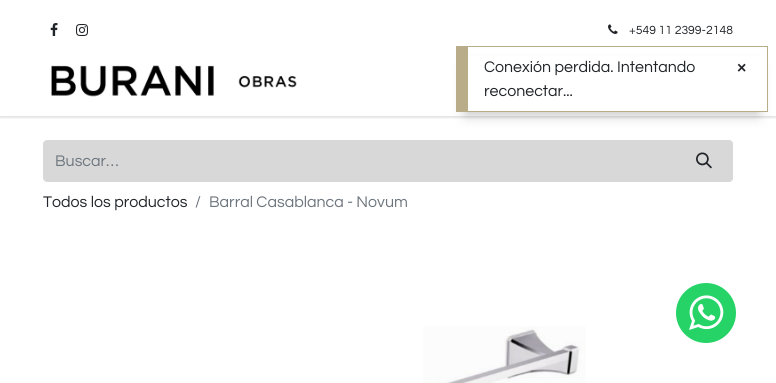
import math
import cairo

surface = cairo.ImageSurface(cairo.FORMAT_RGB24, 776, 383)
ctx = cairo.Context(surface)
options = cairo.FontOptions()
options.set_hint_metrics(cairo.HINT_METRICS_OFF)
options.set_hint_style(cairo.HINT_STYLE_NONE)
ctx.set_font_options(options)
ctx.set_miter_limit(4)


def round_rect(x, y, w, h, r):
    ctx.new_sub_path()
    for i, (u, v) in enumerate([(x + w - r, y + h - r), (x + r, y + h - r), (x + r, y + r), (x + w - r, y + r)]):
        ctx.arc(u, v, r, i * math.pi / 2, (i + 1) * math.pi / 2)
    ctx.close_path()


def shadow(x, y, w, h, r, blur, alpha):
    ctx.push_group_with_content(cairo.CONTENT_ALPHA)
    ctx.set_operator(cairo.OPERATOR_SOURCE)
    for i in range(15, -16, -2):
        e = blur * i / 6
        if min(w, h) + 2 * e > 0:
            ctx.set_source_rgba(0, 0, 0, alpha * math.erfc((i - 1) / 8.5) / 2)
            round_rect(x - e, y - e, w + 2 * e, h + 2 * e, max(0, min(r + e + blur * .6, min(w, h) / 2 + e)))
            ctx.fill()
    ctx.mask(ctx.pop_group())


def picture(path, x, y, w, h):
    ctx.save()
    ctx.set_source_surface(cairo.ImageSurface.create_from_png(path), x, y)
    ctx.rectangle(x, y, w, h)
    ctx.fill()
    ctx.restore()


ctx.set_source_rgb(1, 1, 1)
ctx.paint()
ctx.save()
ctx.rectangle(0, 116, 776, 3)
ctx.clip()
ctx.set_source_rgb(0, 0, 0)
shadow(0, 0, 776, 116, 0, 2.5, 0.25)
ctx.restore()
picture("img1.png", 50, 23, 8, 13)
picture("img2.png", 76, 24, 12, 12)
picture("img3.png", 608, 24, 10, 10)
ctx.select_font_face("Questrial")
ctx.set_font_size(12.25)
ctx.set_source_rgb(0.129, 0.145, 0.161)
ctx.move_to(629, 34)
ctx.show_text("+549 11 2399-2148")
picture("img4.png", 51, 65, 246, 32)
ctx.set_source_rgb(0.847, 0.847, 0.847)
ctx.new_path()
ctx.move_to(47, 140)
ctx.line_to(676, 140)
ctx.line_to(676, 182)
ctx.line_to(47, 182)
ctx.curve_to(45, 182, 43, 180, 43, 178)
ctx.line_to(43, 144)
ctx.curve_to(43, 142, 45, 140, 47, 140)
ctx.close_path()
ctx.fill()
ctx.set_font_size(16)
ctx.set_source_rgb(0.424, 0.459, 0.49)
ctx.move_to(55, 166)
ctx.show_text("Buscar…")
ctx.set_source_rgb(0.847, 0.847, 0.847)
ctx.new_path()
ctx.move_to(675.5, 140.5)
ctx.line_to(729, 140.5)
ctx.curve_to(731, 140.5, 732.5, 142, 732.5, 144)
ctx.line_to(732.5, 178)
ctx.curve_to(732.5, 180, 731, 181.5, 729, 181.5)
ctx.line_to(675.5, 181.5)
ctx.close_path()
ctx.fill_preserve()
ctx.set_line_width(1)
ctx.stroke()
picture("img5.png", 696, 152, 16, 17)
ctx.set_source_rgb(0.129, 0.145, 0.161)
ctx.move_to(43, 207)
ctx.show_text("Todos los productos")
ctx.set_source_rgb(0.424, 0.459, 0.49)
ctx.move_to(195, 207)
ctx.show_text("/")
ctx.move_to(209, 207)
ctx.show_text("Barral Casablanca - Novum")
picture("img6.png", 423, 326, 163, 57)
ctx.set_source_rgb(0, 0, 0)
shadow(466, 68, 292, 46, 0, 7, 0.25)
ctx.set_source_rgb(1, 1, 1)
ctx.rectangle(468, 56, 299, 55)
ctx.fill()
ctx.set_source_rgb(0.722, 0.675, 0.537)
ctx.rectangle(468, 46, 300, 1)
ctx.fill()
ctx.rectangle(767, 46, 1, 66)
ctx.fill()
ctx.rectangle(468, 111, 300, 1)
ctx.fill()
ctx.rectangle(456, 46, 12, 66)
ctx.fill()
ctx.set_source_rgb(0.129, 0.145, 0.161)
ctx.move_to(484, 72)
ctx.show_text("Conexión perdida. Intentando")
ctx.move_to(484, 96)
ctx.show_text("reconectar...")
ctx.select_font_face("Liberation Sans", cairo.FONT_SLANT_NORMAL, cairo.FONT_WEIGHT_BOLD)
ctx.move_to(737, 73)
ctx.show_text("×")
ctx.set_source_rgb(0.145, 0.827, 0.4)
ctx.new_path()
ctx.arc(706, 313, 30, 0, 2 * math.pi)
ctx.fill()
picture("img7.png", 689, 295, 35, 35)
surface.write_to_png("page.png")
